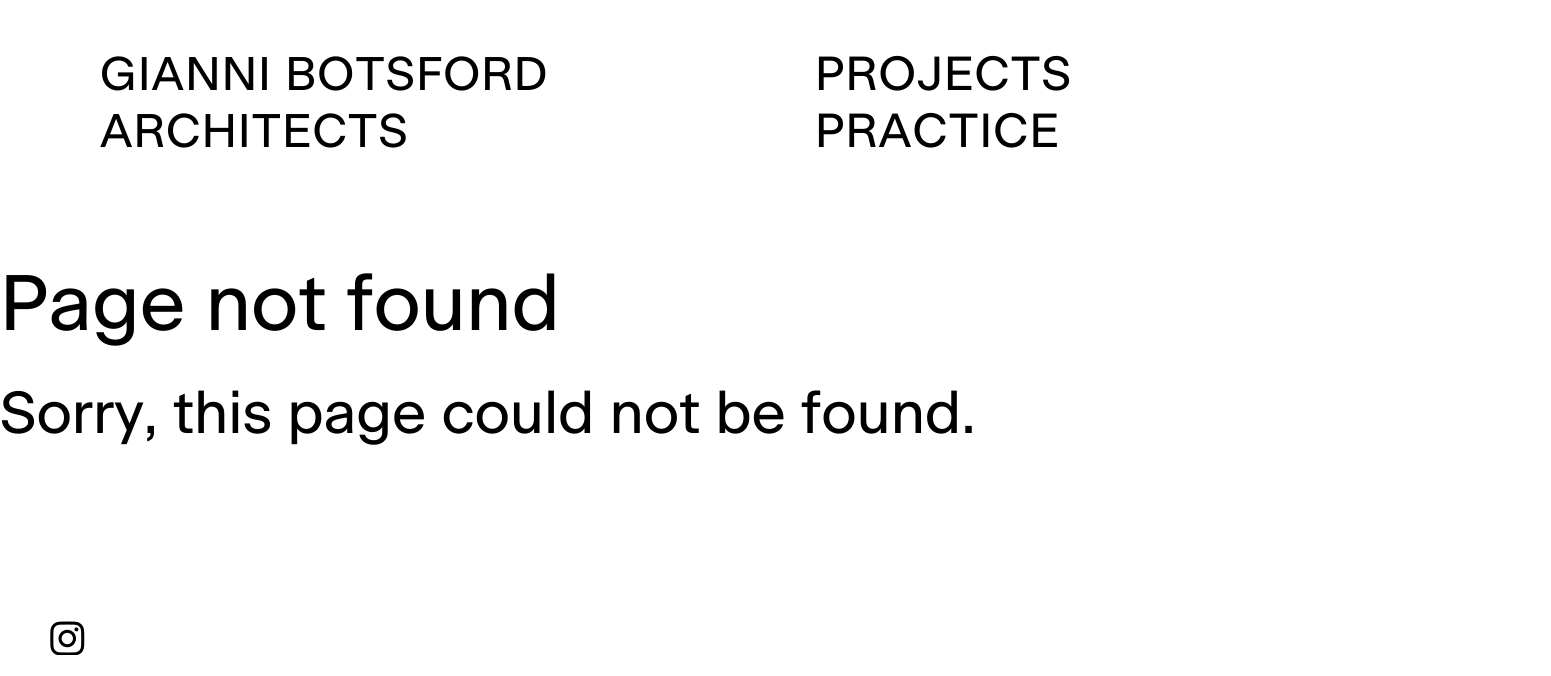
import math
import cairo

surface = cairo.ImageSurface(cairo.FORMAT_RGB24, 1551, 676)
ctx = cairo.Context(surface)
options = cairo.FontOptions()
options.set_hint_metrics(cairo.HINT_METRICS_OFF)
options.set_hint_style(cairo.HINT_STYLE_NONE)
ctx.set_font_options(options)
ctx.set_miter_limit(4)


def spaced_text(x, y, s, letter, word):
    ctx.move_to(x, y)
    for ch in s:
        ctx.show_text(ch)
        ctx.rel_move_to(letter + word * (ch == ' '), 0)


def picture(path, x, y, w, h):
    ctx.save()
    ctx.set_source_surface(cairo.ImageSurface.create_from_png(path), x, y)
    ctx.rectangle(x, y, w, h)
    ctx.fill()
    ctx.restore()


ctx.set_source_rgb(1, 1, 1)
ctx.paint()
ctx.select_font_face("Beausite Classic")
ctx.set_font_size(47.1)
ctx.set_source_rgb(0, 0, 0)
spaced_text(100, 90, "GIANNI BOTSFORD", 1.2, 0)
spaced_text(100, 147, "ARCHITECTS", 1.2, 0)
ctx.set_font_size(47.75)
spaced_text(815, 90, "PROJECTS", 1.2, 0)
spaced_text(815, 147, "PRACTICE", 1.2, 0)
ctx.set_font_size(78.5)
ctx.move_to(0, 330)
ctx.show_text("Page not found")
ctx.set_font_size(58.9)
ctx.move_to(0, 433)
ctx.show_text("Sorry, this page could not be found.")
picture("img1.png", 50, 621, 35, 34)
surface.write_to_png("page.png")
